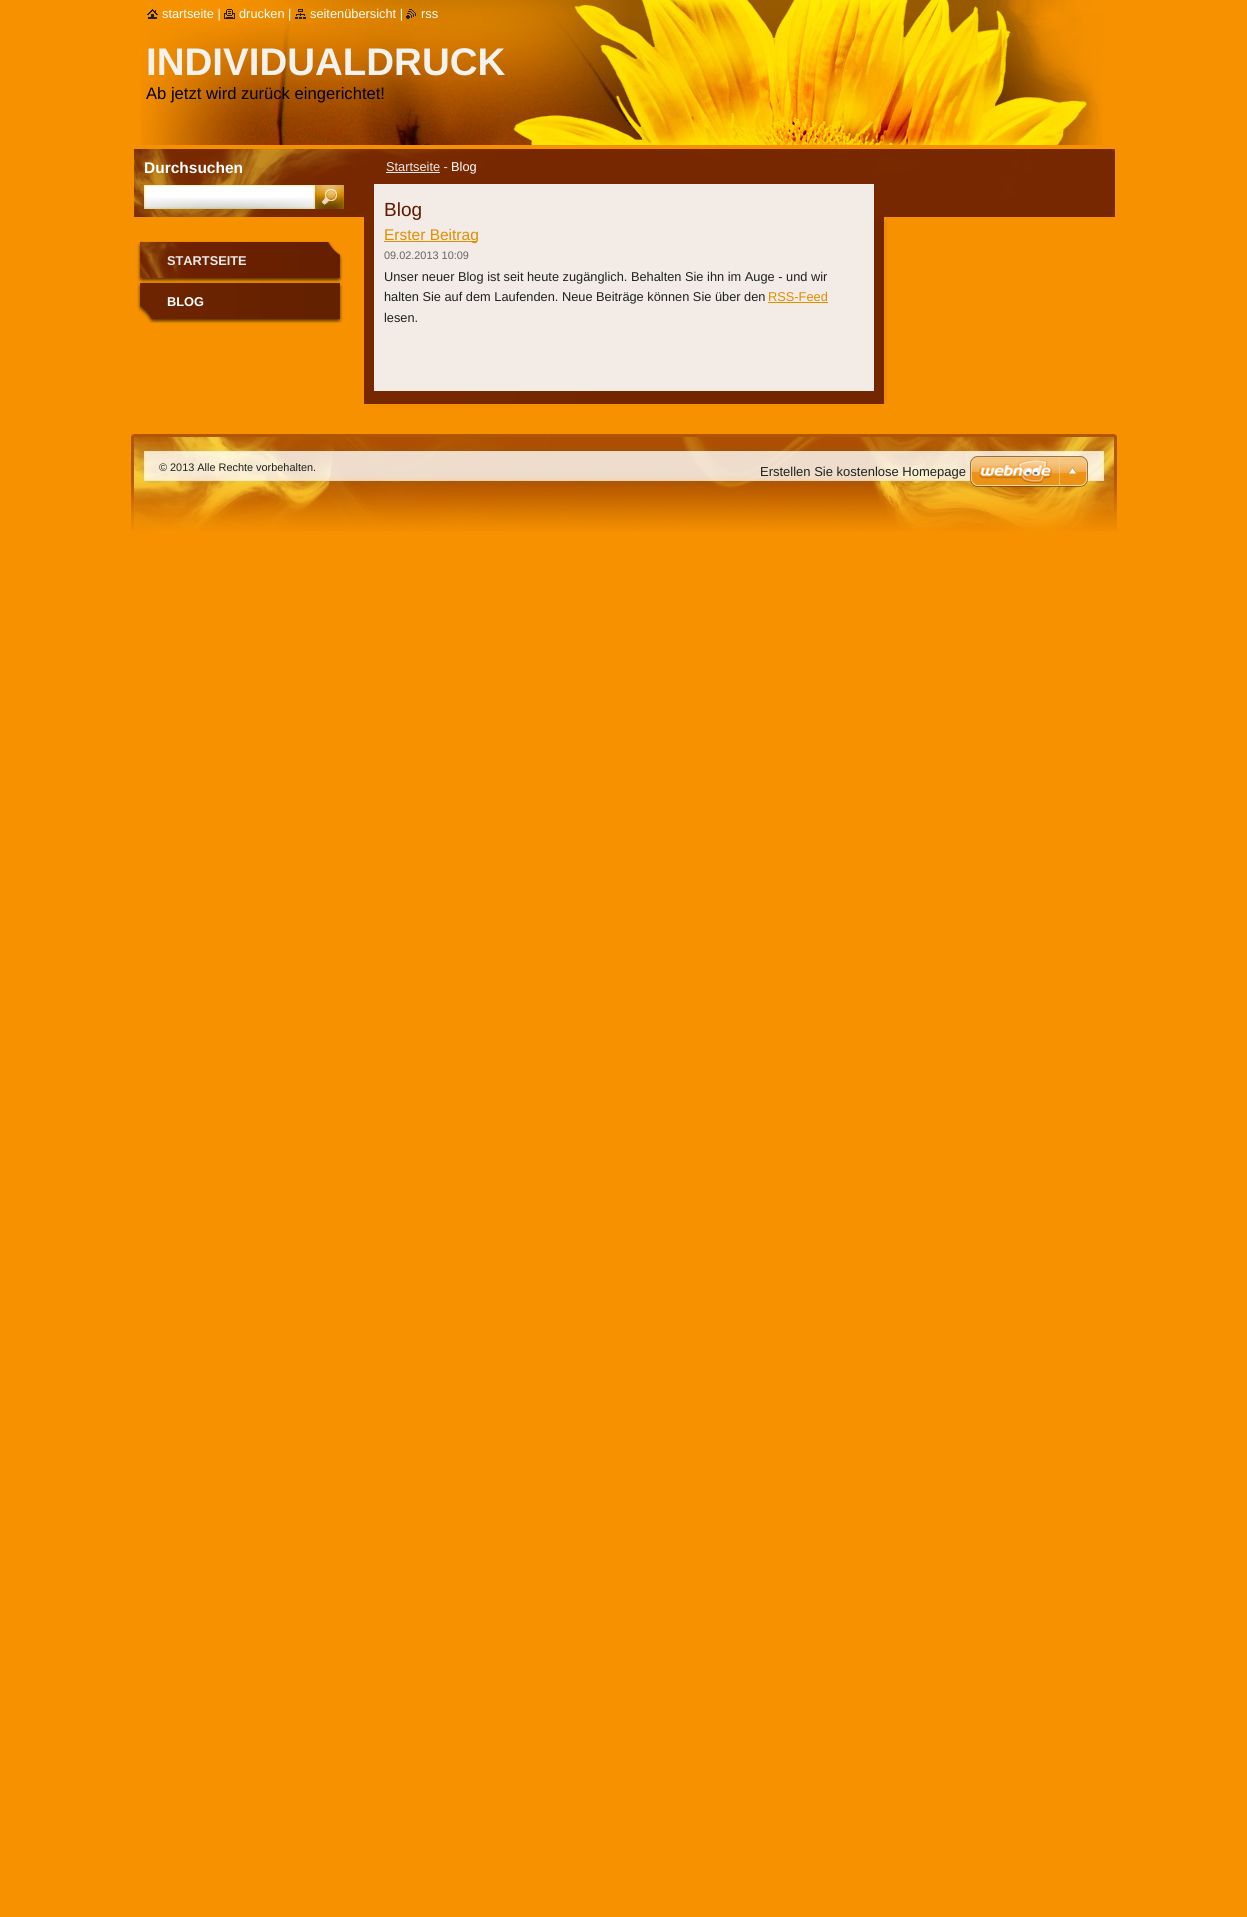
import math
import cairo

surface = cairo.ImageSurface(cairo.FORMAT_RGB24, 1247, 1917)
ctx = cairo.Context(surface)
options = cairo.FontOptions()
options.set_hint_metrics(cairo.HINT_METRICS_OFF)
options.set_hint_style(cairo.HINT_STYLE_NONE)
ctx.set_font_options(options)
ctx.set_miter_limit(4)


def picture(path, x, y, w, h):
    ctx.save()
    ctx.set_source_surface(cairo.ImageSurface.create_from_png(path), x, y)
    ctx.rectangle(x, y, w, h)
    ctx.fill()
    ctx.restore()


ctx.set_source_rgb(0.965, 0.569, 0)
ctx.paint()
picture("img5.png", 141, 0, 962, 145)
picture("img1.png", 147, 9, 11, 10)
ctx.select_font_face("Liberation Sans")
ctx.set_font_size(12.8)
ctx.set_source_rgb(1, 1, 1)
ctx.move_to(162, 18)
ctx.show_text("startseite |")
picture("img2.png", 224, 9, 11, 10)
ctx.move_to(239, 18)
ctx.show_text("drucken |")
picture("img3.png", 295, 9, 11, 10)
ctx.move_to(310, 18)
ctx.show_text("seitenübersicht |")
picture("img4.png", 406, 9, 10, 10)
ctx.move_to(421, 18)
ctx.show_text("rss")
ctx.select_font_face("Liberation Sans", cairo.FONT_SLANT_NORMAL, cairo.FONT_WEIGHT_BOLD)
ctx.set_font_size(38.5)
ctx.set_source_rgb(0.953, 0.949, 0.937)
ctx.move_to(146, 75)
ctx.show_text("INDIVIDUALDRUCK")
ctx.select_font_face("Liberation Sans")
ctx.set_font_size(16.6)
ctx.set_source_rgb(0, 0, 0)
ctx.move_to(146, 99)
ctx.show_text("Ab jetzt wird zurück eingerichtet!")
picture("img6.png", 131, 146, 985, 74)
ctx.select_font_face("Liberation Sans", cairo.FONT_SLANT_NORMAL, cairo.FONT_WEIGHT_BOLD)
ctx.set_font_size(15.5)
ctx.set_source_rgb(1, 1, 1)
ctx.move_to(144, 173)
ctx.show_text("Durchsuchen")
picture("img7.png", 144, 185, 171, 24)
picture("img8.png", 315, 185, 29, 24)
picture("img9.png", 361, 220, 526, 184)
picture("img10.png", 361, 146, 526, 74)
ctx.select_font_face("Liberation Sans")
ctx.set_font_size(12.8)
ctx.set_source_rgb(0.914, 0.914, 0.914)
ctx.move_to(386, 171)
ctx.show_text("Startseite -")
ctx.rectangle(386, 172, 54, 1)
ctx.fill()
ctx.set_source_rgb(1, 1, 1)
ctx.move_to(451, 171)
ctx.show_text("Blog")
ctx.set_source_rgb(0.949, 0.918, 0.902)
ctx.rectangle(374, 184, 500, 207)
ctx.fill()
ctx.set_font_size(19)
ctx.set_source_rgb(0.373, 0.098, 0)
ctx.move_to(384, 216)
ctx.show_text("Blog")
ctx.set_source_rgb(0.875, 0.561, 0)
ctx.rectangle(384, 241, 93, 1)
ctx.fill()
ctx.set_font_size(15.5)
ctx.move_to(384, 240)
ctx.show_text("Erster Beitrag")
ctx.set_font_size(10.9)
ctx.set_source_rgb(0.392, 0.392, 0.392)
ctx.move_to(384, 259)
ctx.show_text("09.02.2013 10:09")
ctx.set_font_size(12.8)
ctx.set_source_rgb(0.122, 0.133, 0.11)
ctx.move_to(384, 281)
ctx.show_text("Unser neuer Blog ist seit heute zugänglich. Behalten Sie ihn im Auge - und wir")
ctx.move_to(384, 301)
ctx.show_text("halten Sie auf dem Laufenden. Neue Beiträge können Sie über den")
ctx.set_source_rgb(0.875, 0.561, 0)
ctx.move_to(768, 301)
ctx.show_text("RSS-Feed")
ctx.rectangle(768, 302, 60, 1)
ctx.fill()
ctx.set_source_rgb(0.122, 0.133, 0.11)
ctx.move_to(384, 322)
ctx.show_text("lesen.")
picture("img11.png", 361, 404, 526, 3)
picture("img12.png", 137, 241, 206, 41)
ctx.select_font_face("Liberation Sans", cairo.FONT_SLANT_NORMAL, cairo.FONT_WEIGHT_BOLD)
ctx.set_source_rgb(0.914, 0.914, 0.914)
ctx.move_to(167, 265)
ctx.show_text("STARTSEITE")
picture("img13.png", 137, 282, 206, 41)
ctx.set_source_rgb(1, 1, 1)
ctx.move_to(167, 306)
ctx.show_text("BLOG")
picture("img14.png", 131, 434, 986, 97)
ctx.select_font_face("Liberation Sans")
ctx.set_font_size(10.9)
ctx.set_source_rgb(0.122, 0.133, 0.11)
ctx.move_to(159, 471)
ctx.show_text("© 2013 Alle Rechte vorbehalten.")
ctx.set_font_size(13)
ctx.move_to(760, 476)
ctx.show_text("Erstellen Sie kostenlose Homepage")
picture("img15.png", 970, 456, 118, 31)
surface.write_to_png("page.png")
